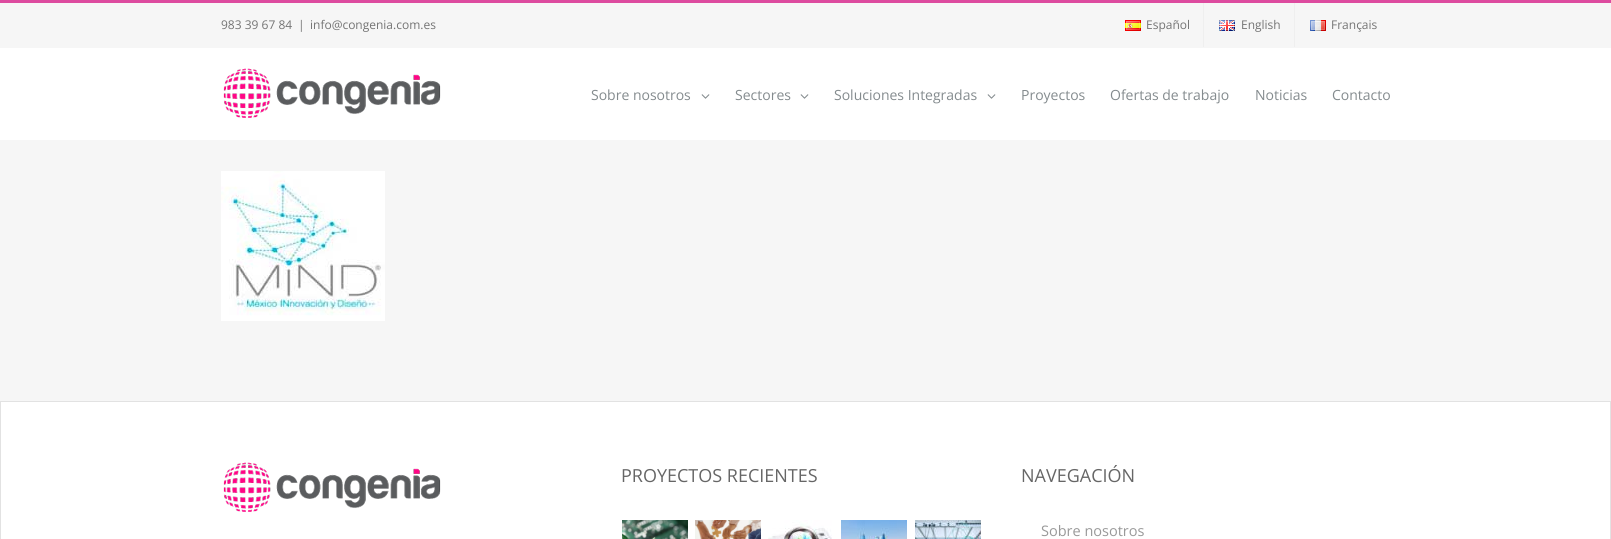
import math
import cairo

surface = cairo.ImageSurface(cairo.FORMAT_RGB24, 1611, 539)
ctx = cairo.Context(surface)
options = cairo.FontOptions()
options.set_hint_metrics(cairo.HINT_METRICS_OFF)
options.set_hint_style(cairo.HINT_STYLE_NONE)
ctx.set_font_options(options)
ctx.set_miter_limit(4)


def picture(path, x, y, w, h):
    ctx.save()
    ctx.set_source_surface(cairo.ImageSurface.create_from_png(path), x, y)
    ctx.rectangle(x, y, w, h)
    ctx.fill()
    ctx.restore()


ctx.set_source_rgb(0.961, 0.961, 0.961)
ctx.paint()
ctx.set_source_rgb(0.867, 0.294, 0.624)
ctx.rectangle(0, 0, 1611, 3)
ctx.fill()
ctx.select_font_face("Open Sans")
ctx.set_font_size(12)
ctx.set_source_rgb(0.455, 0.455, 0.455)
ctx.move_to(221, 29)
ctx.show_text("983 39 67 84")
ctx.move_to(298, 29)
ctx.show_text("|")
ctx.move_to(310, 29)
ctx.show_text("info@congenia.com.es")
picture("img1.png", 1125, 20, 16, 11)
ctx.move_to(1146, 29)
ctx.show_text("Español")
ctx.set_source_rgb(0.937, 0.937, 0.937)
ctx.rectangle(1203, 3, 1, 44)
ctx.fill()
picture("img2.png", 1219, 20, 16, 11)
ctx.set_source_rgb(0.455, 0.455, 0.455)
ctx.move_to(1241, 29)
ctx.show_text("English")
ctx.set_source_rgb(0.937, 0.937, 0.937)
ctx.rectangle(1294, 3, 1, 44)
ctx.fill()
picture("img3.png", 1310, 20, 16, 11)
ctx.set_source_rgb(0.455, 0.455, 0.455)
ctx.move_to(1331, 29)
ctx.show_text("Français")
ctx.set_source_rgb(1, 1, 1)
ctx.rectangle(0, 48, 1611, 92)
ctx.fill()
picture("img4.png", 223, 68, 218, 50)
ctx.set_font_size(14)
ctx.set_source_rgb(0.518, 0.545, 0.557)
ctx.move_to(591, 100)
ctx.show_text("Sobre nosotros")
picture("img5.png", 701, 94, 9, 5)
ctx.move_to(735, 100)
ctx.show_text("Sectores")
picture("img5.png", 800, 94, 9, 5)
ctx.move_to(834, 100)
ctx.show_text("Soluciones Integradas")
picture("img5.png", 987, 94, 9, 5)
ctx.move_to(1021, 100)
ctx.show_text("Proyectos")
ctx.move_to(1110, 100)
ctx.show_text("Ofertas de trabajo")
ctx.move_to(1255, 100)
ctx.show_text("Noticias")
ctx.move_to(1332, 100)
ctx.show_text("Contacto")
picture("img6.png", 221, 171, 164, 150)
ctx.set_source_rgb(1, 1, 1)
ctx.rectangle(0.5, 401.5, 1610, 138)
ctx.fill_preserve()
ctx.set_source_rgb(0.886, 0.886, 0.886)
ctx.set_line_width(1)
ctx.stroke()
picture("img4.png", 223, 462, 218, 50)
ctx.set_font_size(18)
ctx.set_source_rgb(0.4, 0.4, 0.4)
ctx.move_to(621, 482)
ctx.show_text("PROYECTOS RECIENTES")
picture("img7.png", 622, 520, 66, 19)
picture("img8.png", 695, 520, 66, 19)
picture("img9.png", 768, 520, 64, 19)
picture("img10.png", 841, 520, 66, 19)
picture("img11.png", 915, 520, 66, 19)
ctx.move_to(1021, 482)
ctx.show_text("NAVEGACIÓN")
ctx.set_font_size(14.5)
ctx.set_source_rgb(0.6, 0.6, 0.6)
ctx.move_to(1041, 536)
ctx.show_text("Sobre nosotros")
surface.write_to_png("page.png")
